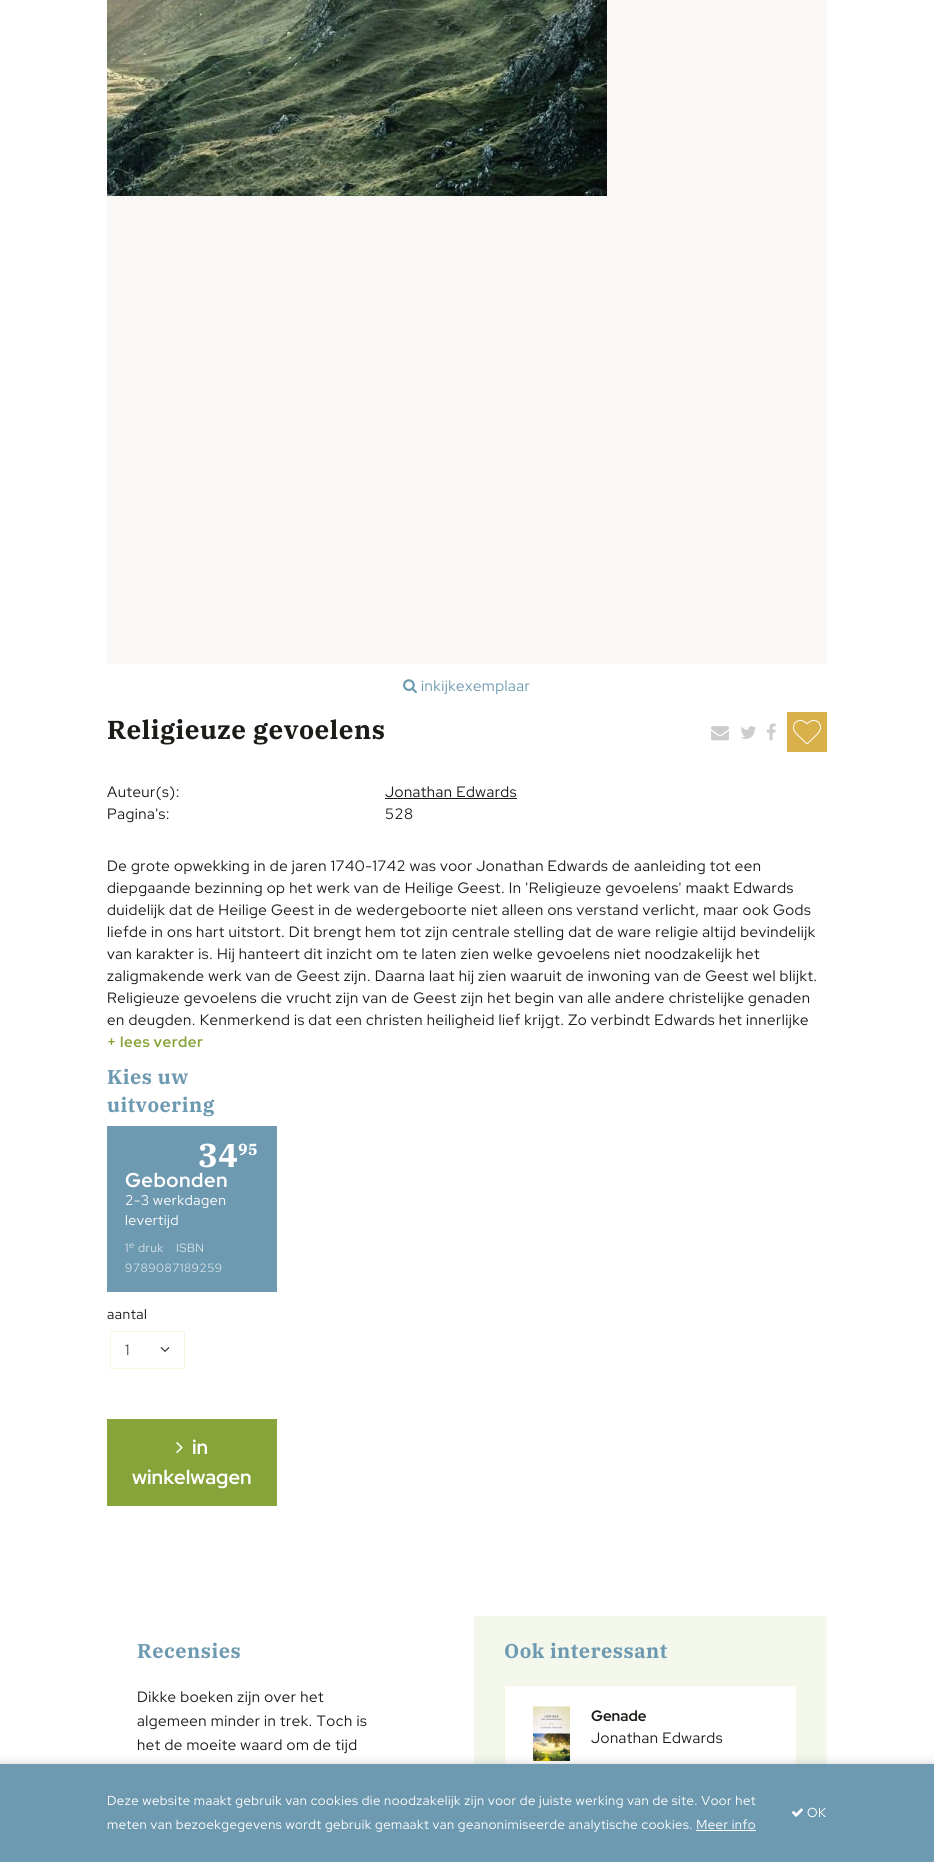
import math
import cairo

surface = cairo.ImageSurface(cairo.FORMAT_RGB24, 934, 1862)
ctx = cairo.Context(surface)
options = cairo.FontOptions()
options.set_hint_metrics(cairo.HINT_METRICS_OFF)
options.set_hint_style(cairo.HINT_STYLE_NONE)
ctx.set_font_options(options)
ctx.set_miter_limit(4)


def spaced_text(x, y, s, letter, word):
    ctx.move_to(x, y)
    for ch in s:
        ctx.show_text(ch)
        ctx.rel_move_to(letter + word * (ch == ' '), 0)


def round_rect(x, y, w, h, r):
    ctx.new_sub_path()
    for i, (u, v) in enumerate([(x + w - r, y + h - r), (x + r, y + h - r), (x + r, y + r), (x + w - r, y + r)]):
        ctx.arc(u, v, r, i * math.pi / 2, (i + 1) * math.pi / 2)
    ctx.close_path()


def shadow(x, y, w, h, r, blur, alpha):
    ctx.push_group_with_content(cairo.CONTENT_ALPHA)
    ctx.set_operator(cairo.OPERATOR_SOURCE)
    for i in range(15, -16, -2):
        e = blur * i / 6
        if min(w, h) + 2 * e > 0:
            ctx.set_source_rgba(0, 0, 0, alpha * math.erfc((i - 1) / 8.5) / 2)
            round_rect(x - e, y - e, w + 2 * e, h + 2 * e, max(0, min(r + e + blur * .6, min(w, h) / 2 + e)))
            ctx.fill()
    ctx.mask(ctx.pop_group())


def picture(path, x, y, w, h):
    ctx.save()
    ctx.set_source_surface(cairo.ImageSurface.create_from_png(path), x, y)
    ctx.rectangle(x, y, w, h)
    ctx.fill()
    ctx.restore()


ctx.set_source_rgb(1, 1, 1)
ctx.paint()
ctx.set_source_rgb(0.973, 0.969, 0.961)
ctx.rectangle(107, 0, 720, 664)
ctx.fill()
picture("img1.png", 107, 0, 500, 196)
picture("img2.png", 403, 679, 14, 15)
ctx.select_font_face("Red Hat Display")
ctx.set_font_size(15)
ctx.set_source_rgb(0.431, 0.604, 0.694)
spaced_text(421, 691, "inkijkexemplaar", 0.5, 0)
ctx.select_font_face("IBM Plex Serif", cairo.FONT_SLANT_NORMAL, cairo.FONT_WEIGHT_BOLD)
ctx.set_font_size(26)
ctx.set_source_rgb(0.102, 0.11, 0.09)
spaced_text(107, 739, "Religieuze gevoelens", 0.5, 0)
picture("img3.png", 711, 726, 18, 15)
picture("img4.png", 740, 726, 16, 13)
picture("img5.png", 767, 723, 9, 18)
ctx.set_source_rgb(0.851, 0.69, 0.29)
ctx.rectangle(787, 712, 40, 40)
ctx.fill()
picture("img6.png", 793, 720, 28, 24)
ctx.select_font_face("Red Hat Display")
ctx.set_font_size(15)
ctx.set_source_rgb(0.102, 0.11, 0.09)
spaced_text(107, 797, "Auteur(s):", 0.5, 0)
spaced_text(385, 797, "Jonathan Edwards", 0.5, 0)
ctx.rectangle(385, 798, 132, 1)
ctx.fill()
spaced_text(107, 819, "Pagina's:", 0.5, 0)
spaced_text(385, 819, "528", 0.5, 0)
spaced_text(107, 871, "De grote opwekking in de jaren 1740-1742 was voor Jonathan Edwards de aanleiding tot een", 0.5, 0)
spaced_text(107, 893, "diepgaande bezinning op het werk van de Heilige Geest. In 'Religieuze gevoelens' maakt Edwards", 0.5, 0)
spaced_text(107, 915, "duidelijk dat de Heilige Geest in de wedergeboorte niet alleen ons verstand verlicht, maar ook Gods", 0.5, 0)
spaced_text(107, 937, "liefde in ons hart uitstort. Dit brengt hem tot zijn centrale stelling dat de ware religie altijd bevindelijk", 0.5, 0)
spaced_text(107, 959, "van karakter is. Hij hanteert dit inzicht om te laten zien welke gevoelens niet noodzakelijk het", 0.5, 0)
spaced_text(107, 981, "zaligmakende werk van de Geest zijn. Daarna laat hij zien waaruit de inwoning van de Geest wel blijkt.", 0.5, 0)
spaced_text(107, 1003, "Religieuze gevoelens die vrucht zijn van de Geest zijn het begin van alle andere christelijke genaden", 0.5, 0)
spaced_text(107, 1025, "en deugden. Kenmerkend is dat een christen heiligheid lief krijgt. Zo verbindt Edwards het innerlijke", 0.5, 0)
ctx.select_font_face("Red Hat Display", cairo.FONT_SLANT_NORMAL, cairo.FONT_WEIGHT_BOLD)
ctx.set_source_rgb(0.529, 0.643, 0.227)
spaced_text(107, 1047, "+ lees verder", 0.5, 0)
ctx.select_font_face("IBM Plex Serif", cairo.FONT_SLANT_NORMAL, cairo.FONT_WEIGHT_BOLD)
ctx.set_font_size(20)
ctx.set_source_rgb(0.431, 0.604, 0.694)
spaced_text(107, 1084, "Kies uw", 0.5, 0)
spaced_text(107, 1112, "uitvoering", 0.5, 0)
ctx.rectangle(107, 1126, 170, 166)
ctx.fill()
ctx.set_font_size(33)
ctx.set_source_rgb(1, 1, 1)
spaced_text(198, 1167, "34", 0.5, 0)
ctx.set_font_size(16)
spaced_text(238, 1155, "95", 0.5, 0)
ctx.select_font_face("Red Hat Display", cairo.FONT_SLANT_NORMAL, cairo.FONT_WEIGHT_BOLD)
ctx.set_font_size(20)
spaced_text(125, 1187, "Gebonden", 0.5, 0)
ctx.select_font_face("Red Hat Display")
ctx.set_font_size(14)
spaced_text(125, 1205, "2-3 werkdagen", 0.5, 0)
spaced_text(125, 1225, "levertijd", 0.5, 0)
ctx.set_font_size(12)
ctx.set_source_rgb(0.831, 0.882, 0.91)
spaced_text(125, 1252, "1", 0.5, 0)
ctx.set_font_size(9)
spaced_text(129, 1248, "e", 0.5, 0)
ctx.set_font_size(12)
spaced_text(138, 1252, "druk", 0.5, 0)
spaced_text(176, 1252, "ISBN", 0.5, 0)
spaced_text(125, 1272, "9789087189259", 0.5, 0)
ctx.set_font_size(14)
ctx.set_source_rgb(0.102, 0.11, 0.09)
spaced_text(107, 1319, "aantal", 0.5, 0)
picture("img7.png", 160, 1347, 10, 5)
ctx.rectangle(110.5, 1331.5, 74, 37)
ctx.set_source_rgb(0.984, 0.957, 0.894)
ctx.set_line_width(1)
ctx.stroke()
ctx.set_font_size(15)
ctx.set_source_rgb(0.302, 0.302, 0.302)
ctx.move_to(125, 1355)
ctx.show_text("1")
ctx.set_source_rgb(0.529, 0.643, 0.227)
ctx.rectangle(107, 1419, 170, 87)
ctx.fill()
picture("img8.png", 176, 1442, 7, 12)
ctx.select_font_face("Red Hat Display", cairo.FONT_SLANT_NORMAL, cairo.FONT_WEIGHT_BOLD)
ctx.set_font_size(20)
ctx.set_source_rgb(1, 1, 1)
ctx.move_to(192, 1454)
ctx.show_text("in")
ctx.move_to(132, 1484)
ctx.show_text("winkelwagen")
ctx.select_font_face("IBM Plex Serif", cairo.FONT_SLANT_NORMAL, cairo.FONT_WEIGHT_BOLD)
ctx.set_source_rgb(0.431, 0.604, 0.694)
spaced_text(137, 1658, "Recensies", 0.5, 0)
ctx.select_font_face("Red Hat Display")
ctx.set_font_size(15)
ctx.set_source_rgb(0.102, 0.11, 0.09)
spaced_text(137, 1702, "Dikke boeken zijn over het", 0.5, 0)
spaced_text(137, 1726, "algemeen minder in trek. Toch is", 0.5, 0)
spaced_text(137, 1750, "het de moeite waard om de tijd", 0.5, 0)
ctx.set_source_rgb(0.953, 0.965, 0.922)
ctx.rectangle(474, 1616, 353, 148)
ctx.fill()
ctx.select_font_face("IBM Plex Serif", cairo.FONT_SLANT_NORMAL, cairo.FONT_WEIGHT_BOLD)
ctx.set_font_size(20)
ctx.set_source_rgb(0.431, 0.604, 0.694)
spaced_text(504, 1658, "Ook interessant", 0.5, 0)
ctx.set_source_rgb(1, 1, 1)
ctx.rectangle(505, 1686, 291, 78)
ctx.fill()
ctx.rectangle(504.5, 1685.5, 292, 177)
ctx.set_source_rgb(0.984, 0.957, 0.894)
ctx.stroke()
picture("img9.png", 533, 1706, 37, 55)
ctx.select_font_face("Red Hat Display", cairo.FONT_SLANT_NORMAL, cairo.FONT_WEIGHT_BOLD)
ctx.set_font_size(15)
ctx.set_source_rgb(0.102, 0.11, 0.09)
ctx.move_to(591, 1721)
ctx.show_text("Genade")
ctx.select_font_face("Red Hat Display")
spaced_text(591, 1743, "Jonathan Edwards", 0.5, 0)
ctx.set_source_rgb(0, 0, 0)
shadow(0, 1764, 934, 98, 0, 5, 0.2)
ctx.set_source_rgb(0.431, 0.604, 0.694)
ctx.rectangle(0, 1764, 934, 98)
ctx.fill()
ctx.set_font_size(13)
ctx.set_source_rgb(1, 1, 1)
spaced_text(107, 1805, "Deze website maakt gebruik van cookies die noodzakelijk zijn voor de juiste werking van de site. Voor het", 0.5, 0)
spaced_text(107, 1829, "meten van bezoekgegevens wordt gebruik gemaakt van geanonimiseerde analytische cookies. Meer info", 0.5, 0)
ctx.rectangle(696, 1830, 60, 1)
ctx.fill()
picture("img10.png", 791, 1808, 12, 9)
spaced_text(807, 1817, "OK", 0.5, 0)
surface.write_to_png("page.png")
